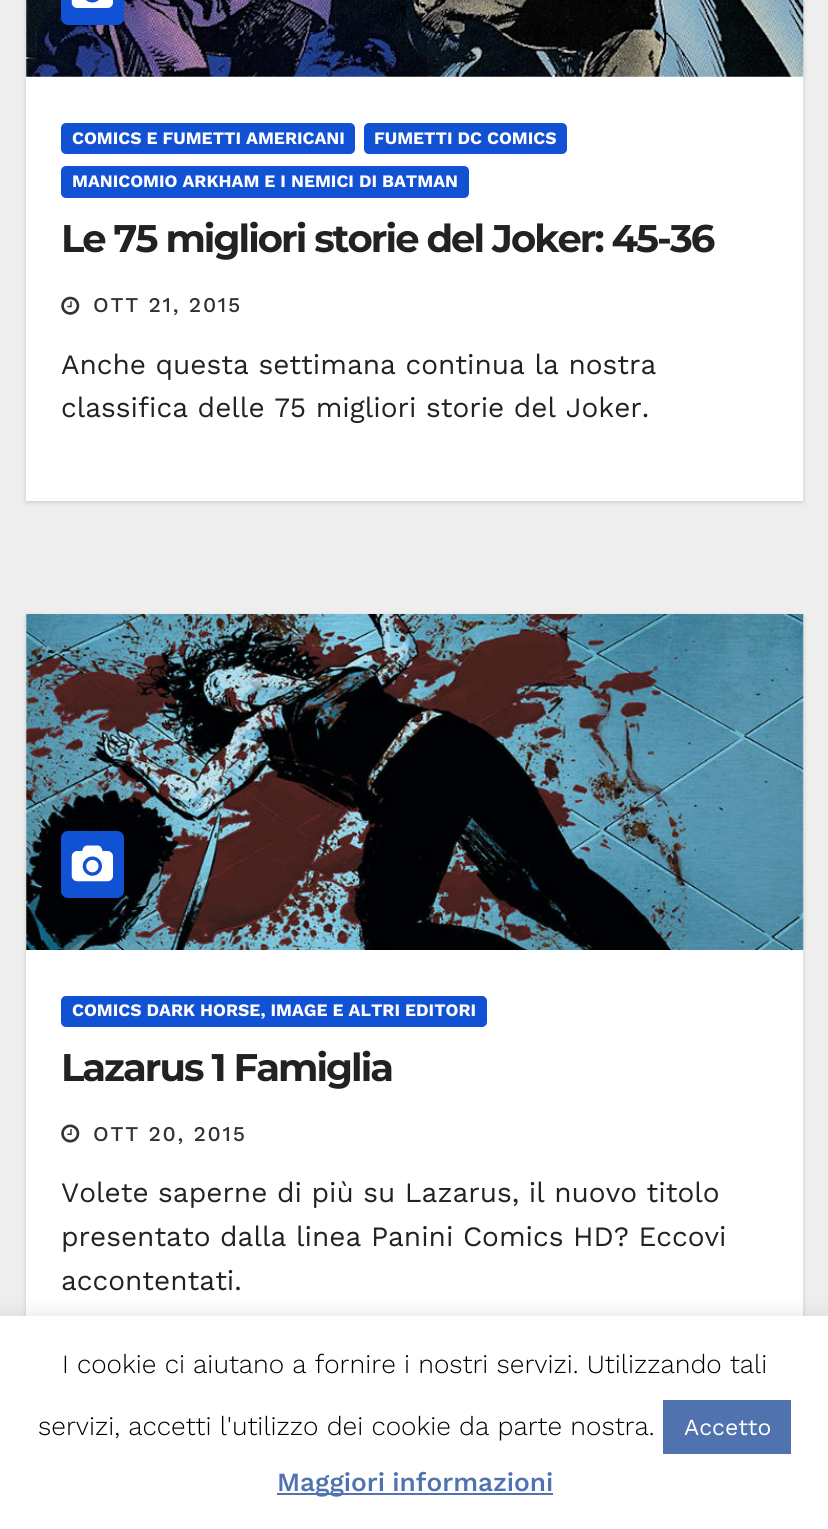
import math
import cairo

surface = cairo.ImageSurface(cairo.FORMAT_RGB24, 828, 1529)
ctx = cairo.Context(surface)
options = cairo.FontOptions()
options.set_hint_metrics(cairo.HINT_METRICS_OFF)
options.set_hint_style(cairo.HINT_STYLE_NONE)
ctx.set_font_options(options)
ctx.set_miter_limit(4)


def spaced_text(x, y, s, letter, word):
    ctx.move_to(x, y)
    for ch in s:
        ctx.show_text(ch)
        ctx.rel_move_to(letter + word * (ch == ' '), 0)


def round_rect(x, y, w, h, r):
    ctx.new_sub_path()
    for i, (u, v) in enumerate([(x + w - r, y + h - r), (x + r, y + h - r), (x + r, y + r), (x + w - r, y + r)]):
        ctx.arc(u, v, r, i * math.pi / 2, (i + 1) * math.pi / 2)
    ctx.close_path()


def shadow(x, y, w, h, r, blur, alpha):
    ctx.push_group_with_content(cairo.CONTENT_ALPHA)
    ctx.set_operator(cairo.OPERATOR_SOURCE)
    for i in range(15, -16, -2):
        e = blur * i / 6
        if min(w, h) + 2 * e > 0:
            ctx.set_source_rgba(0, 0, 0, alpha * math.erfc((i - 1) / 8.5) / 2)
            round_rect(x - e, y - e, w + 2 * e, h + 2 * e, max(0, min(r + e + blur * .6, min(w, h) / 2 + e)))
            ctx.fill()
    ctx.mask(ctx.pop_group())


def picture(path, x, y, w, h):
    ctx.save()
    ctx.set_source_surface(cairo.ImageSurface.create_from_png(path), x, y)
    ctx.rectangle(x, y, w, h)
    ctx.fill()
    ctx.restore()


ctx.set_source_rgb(0.933, 0.933, 0.933)
ctx.paint()
ctx.set_source_rgb(0, 0, 0)
shadow(26, -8, 777, 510, 0, 2.5, 0.15)
ctx.set_source_rgb(1, 1, 1)
ctx.rectangle(26, 0, 777, 501)
ctx.fill()
picture("img2.png", 26, 0, 778, 77)
ctx.set_source_rgb(0.067, 0.318, 0.827)
round_rect(61, -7, 63, 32, 7)
ctx.fill()
picture("img1.png", 71, 0, 42, 8)
round_rect(61, 123, 294, 31, 5)
ctx.fill()
ctx.select_font_face("Work Sans", cairo.FONT_SLANT_NORMAL, cairo.FONT_WEIGHT_BOLD)
ctx.set_font_size(17.5)
ctx.set_source_rgb(1, 1, 1)
ctx.move_to(72, 144)
ctx.show_text("COMICS E FUMETTI AMERICANI")
ctx.set_source_rgb(0.067, 0.318, 0.827)
round_rect(364, 123, 203, 31, 5)
ctx.fill()
ctx.set_source_rgb(1, 1, 1)
ctx.move_to(374, 144)
ctx.show_text("FUMETTI DC COMICS")
ctx.set_source_rgb(0.067, 0.318, 0.827)
round_rect(61, 166, 408, 32, 5)
ctx.fill()
ctx.set_source_rgb(1, 1, 1)
ctx.move_to(72, 187)
ctx.show_text("MANICOMIO ARKHAM E I NEMICI DI BATMAN")
ctx.select_font_face("Montserrat", cairo.FONT_SLANT_NORMAL, cairo.FONT_WEIGHT_BOLD)
ctx.set_font_size(38.5)
ctx.set_source_rgb(0.133, 0.133, 0.133)
spaced_text(61, 252, "Le 75 migliori storie del Joker: 45-36", -1.95, 0)
picture("img3.png", 61, 296, 19, 19)
ctx.select_font_face("Work Sans Medium")
ctx.set_font_size(21)
ctx.set_source_rgb(0.2, 0.2, 0.2)
spaced_text(93, 312, "OTT 21, 2015", 1.75, 0)
ctx.select_font_face("Work Sans")
ctx.set_font_size(28)
ctx.set_source_rgb(0.133, 0.133, 0.133)
ctx.move_to(61, 374)
ctx.show_text("Anche questa settimana continua la nostra")
ctx.move_to(61, 417)
ctx.show_text("classifica delle 75 migliori storie del Joker.")
ctx.set_source_rgb(0, 0, 0)
shadow(26, 616, 777, 758, 0, 2.5, 0.15)
ctx.set_source_rgb(1, 1, 1)
ctx.rectangle(26, 614, 777, 702)
ctx.fill()
picture("img4.png", 26, 614, 778, 336)
ctx.set_source_rgb(0.067, 0.318, 0.827)
round_rect(61, 831, 63, 67, 7)
ctx.fill()
picture("img5.png", 71, 845, 42, 37)
round_rect(61, 996, 426, 31, 5)
ctx.fill()
ctx.select_font_face("Work Sans", cairo.FONT_SLANT_NORMAL, cairo.FONT_WEIGHT_BOLD)
ctx.set_font_size(17.5)
ctx.set_source_rgb(1, 1, 1)
ctx.move_to(72, 1016)
ctx.show_text("COMICS DARK HORSE, IMAGE E ALTRI EDITORI")
ctx.select_font_face("Montserrat", cairo.FONT_SLANT_NORMAL, cairo.FONT_WEIGHT_BOLD)
ctx.set_font_size(38.5)
ctx.set_source_rgb(0.133, 0.133, 0.133)
spaced_text(61, 1081, "Lazarus 1 Famiglia", -1.95, 0)
picture("img6.png", 61, 1124, 19, 19)
ctx.select_font_face("Work Sans Medium")
ctx.set_font_size(21)
ctx.set_source_rgb(0.2, 0.2, 0.2)
spaced_text(93, 1141, "OTT 20, 2015", 1.75, 0)
ctx.select_font_face("Work Sans")
ctx.set_font_size(28)
ctx.set_source_rgb(0.133, 0.133, 0.133)
ctx.move_to(61, 1202)
ctx.show_text("Volete saperne di più su Lazarus, il nuovo titolo")
ctx.move_to(61, 1246)
ctx.show_text("presentato dalla linea Panini Comics HD? Eccovi")
ctx.move_to(61, 1290)
ctx.show_text("accontentati.")
ctx.set_source_rgb(0.675, 0.671, 0.671)
shadow(0, 1314, 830, 214, 0, 9, 0.3)
ctx.set_source_rgb(1, 1, 1)
ctx.rectangle(0, 1316, 828, 213)
ctx.fill()
ctx.select_font_face("Work Sans Light")
ctx.set_font_size(26.25)
ctx.set_source_rgb(0, 0, 0)
ctx.move_to(62, 1373)
ctx.show_text("I cookie ci aiutano a fornire i nostri servizi. Utilizzando tali")
ctx.move_to(38, 1435)
ctx.show_text("servizi, accetti l'utilizzo dei cookie da parte nostra.")
ctx.set_source_rgb(0.314, 0.451, 0.686)
ctx.rectangle(663, 1400, 128, 54)
ctx.fill()
ctx.select_font_face("Work Sans")
ctx.set_font_size(23)
ctx.set_source_rgb(1, 1, 1)
ctx.move_to(684, 1435)
ctx.show_text("Accetto")
ctx.set_source_rgb(0.314, 0.451, 0.686)
ctx.rectangle(277, 1493, 276, 2)
ctx.fill()
ctx.select_font_face("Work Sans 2 Medium")
ctx.set_font_size(26.25)
spaced_text(277, 1491, "Maggiori informazioni", 0, -1)
surface.write_to_png("page.png")
